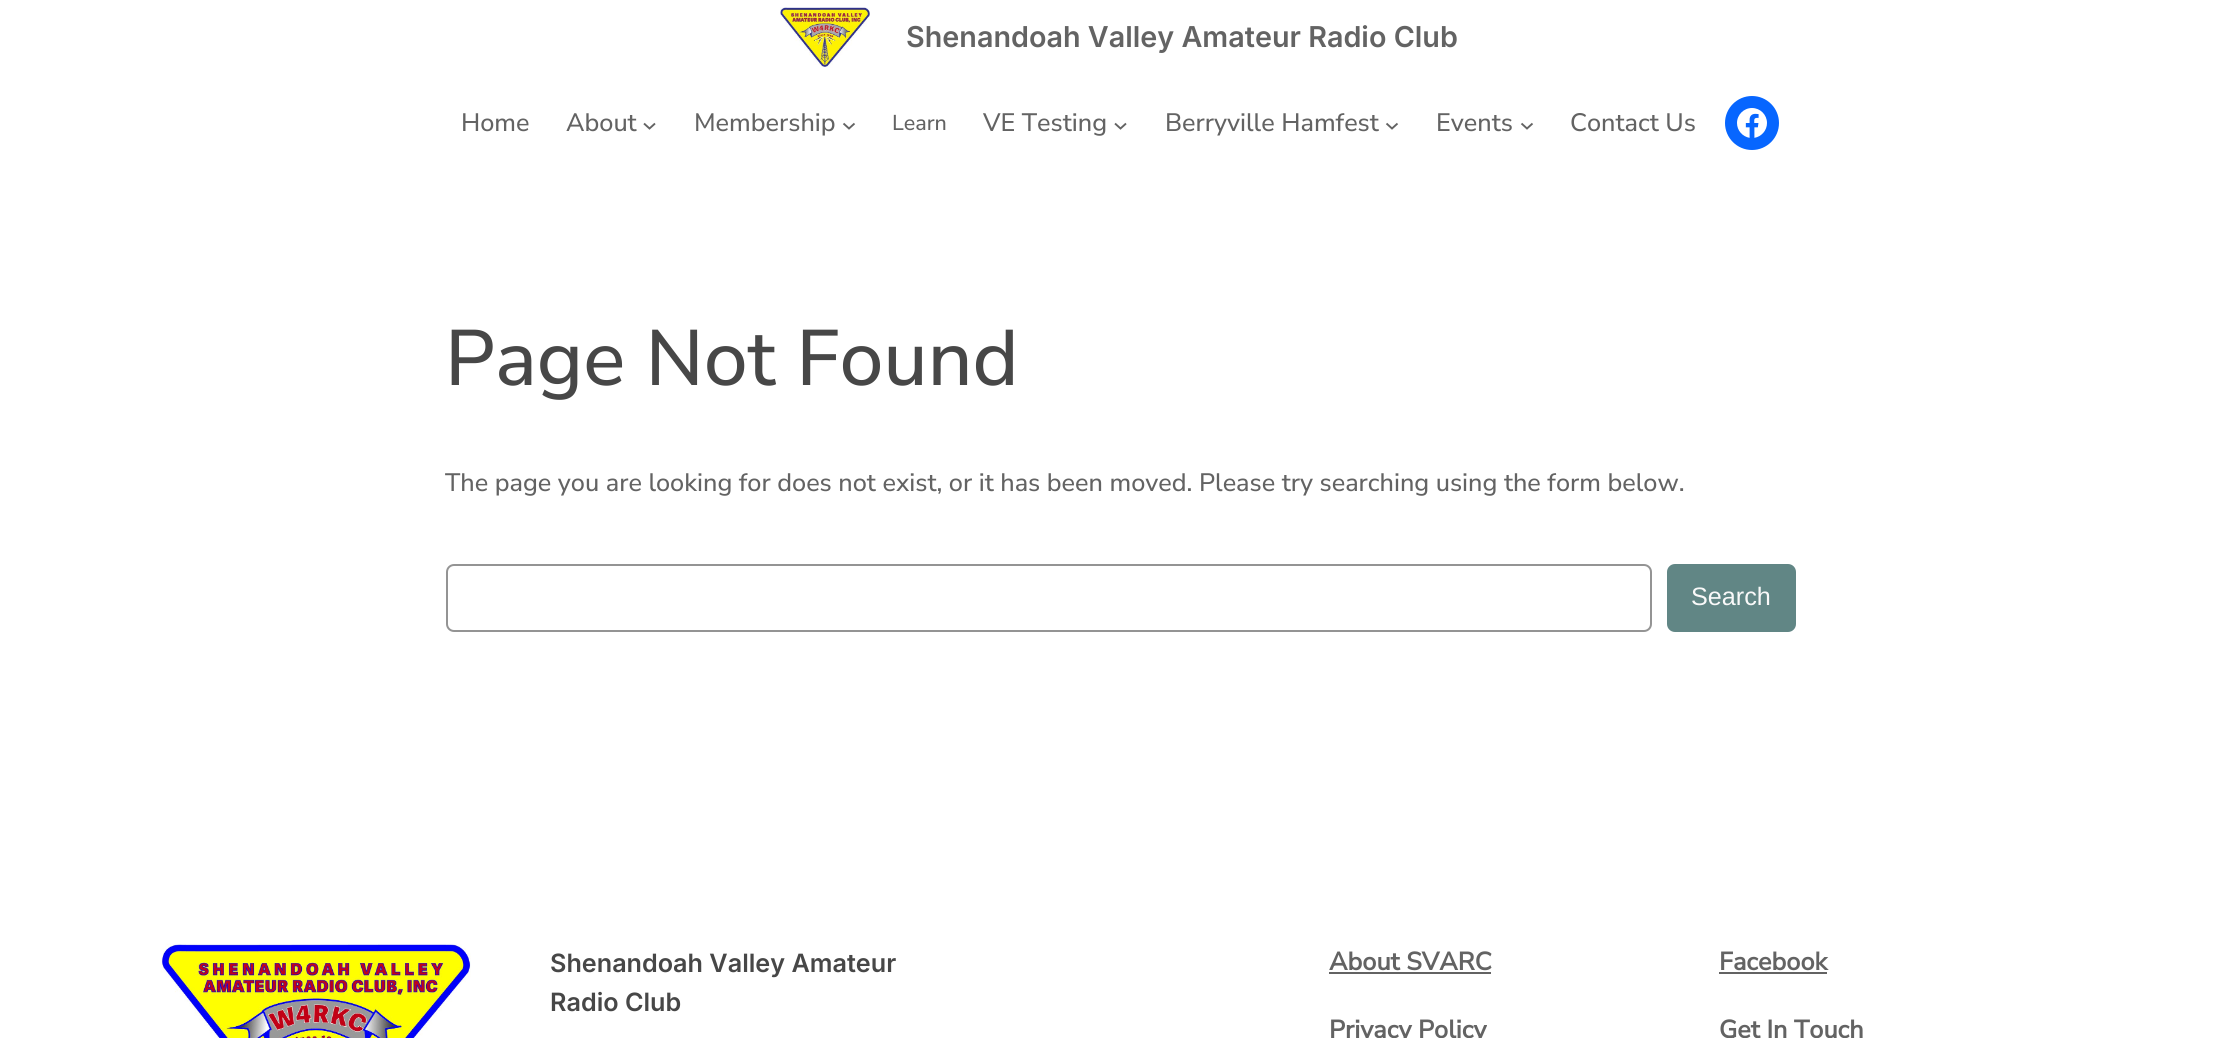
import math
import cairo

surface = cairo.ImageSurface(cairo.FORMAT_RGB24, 2239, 1038)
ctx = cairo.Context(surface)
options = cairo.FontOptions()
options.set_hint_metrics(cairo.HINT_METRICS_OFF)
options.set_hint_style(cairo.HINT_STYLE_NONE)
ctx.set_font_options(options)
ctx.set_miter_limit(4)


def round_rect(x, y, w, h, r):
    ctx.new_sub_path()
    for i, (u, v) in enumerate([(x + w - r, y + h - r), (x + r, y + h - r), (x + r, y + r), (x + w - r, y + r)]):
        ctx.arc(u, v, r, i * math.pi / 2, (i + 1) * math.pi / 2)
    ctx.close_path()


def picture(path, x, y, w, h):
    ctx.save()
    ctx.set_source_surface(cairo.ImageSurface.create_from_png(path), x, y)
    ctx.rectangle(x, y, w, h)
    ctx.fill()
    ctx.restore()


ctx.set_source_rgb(1, 1, 1)
ctx.paint()
picture("img1.png", 780, 7, 90, 61)
ctx.select_font_face("Inter SemiBold")
ctx.set_font_size(28.75)
ctx.set_source_rgb(0.388, 0.388, 0.388)
ctx.move_to(906, 47)
ctx.show_text("Shenandoah Valley Amateur Radio Club")
ctx.select_font_face("Nunito Sans Medium")
ctx.set_font_size(25.2)
ctx.move_to(461, 131)
ctx.show_text("Home")
ctx.move_to(566, 131)
ctx.show_text("About")
ctx.new_path()
ctx.move_to(644, 123.5)
ctx.line_to(649.5, 128.5)
ctx.line_to(655, 123.5)
ctx.set_line_width(1.9)
ctx.stroke()
ctx.move_to(694, 131)
ctx.show_text("Membership")
ctx.new_path()
ctx.move_to(843.5, 123.5)
ctx.line_to(849, 128.5)
ctx.line_to(854.5, 123.5)
ctx.stroke()
ctx.set_font_size(21.5)
ctx.move_to(892, 130)
ctx.show_text("Learn")
ctx.set_font_size(25.2)
ctx.move_to(983, 131)
ctx.show_text("VE Testing")
ctx.new_path()
ctx.move_to(1115, 123.5)
ctx.line_to(1120.5, 128.5)
ctx.line_to(1126, 123.5)
ctx.stroke()
ctx.move_to(1165, 131)
ctx.show_text("Berryville Hamfest")
ctx.new_path()
ctx.move_to(1386.5, 123.5)
ctx.line_to(1392, 128.5)
ctx.line_to(1397.5, 123.5)
ctx.stroke()
ctx.move_to(1436, 131)
ctx.show_text("Events")
ctx.new_path()
ctx.move_to(1521.5, 123.5)
ctx.line_to(1527, 128.5)
ctx.line_to(1532.5, 123.5)
ctx.stroke()
ctx.move_to(1570, 131)
ctx.show_text("Contact Us")
ctx.set_source_rgb(0.031, 0.4, 1)
ctx.new_path()
ctx.arc(1752, 123, 27, 0, 2 * math.pi)
ctx.fill()
picture("img2.png", 1737, 108, 30, 30)
ctx.set_font_size(78.5)
ctx.set_source_rgb(0.278, 0.278, 0.278)
ctx.move_to(445, 385)
ctx.show_text("Page Not Found")
ctx.set_font_size(25.2)
ctx.set_source_rgb(0.388, 0.388, 0.388)
ctx.move_to(445, 491)
ctx.show_text("The page you are looking for does not exist, or it has been moved. Please try searching using the form below.")
round_rect(447, 565, 1204, 66, 7)
ctx.set_source_rgb(0.58, 0.58, 0.58)
ctx.set_line_width(2)
ctx.stroke()
ctx.set_source_rgb(0.38, 0.525, 0.522)
round_rect(1667, 564, 129, 68, 8)
ctx.fill()
ctx.select_font_face("Liberation Sans")
ctx.set_source_rgb(0.976, 0.976, 0.976)
ctx.move_to(1691, 605)
ctx.show_text("Search")
picture("img3.png", 160, 943, 311, 95)
ctx.select_font_face("Inter SemiBold")
ctx.set_source_rgb(0.278, 0.278, 0.278)
ctx.move_to(550, 972)
ctx.show_text("Shenandoah Valley Amateur")
ctx.move_to(550, 1011)
ctx.show_text("Radio Club")
ctx.select_font_face("Nunito Sans", cairo.FONT_SLANT_NORMAL, cairo.FONT_WEIGHT_BOLD)
ctx.set_source_rgb(0.388, 0.388, 0.388)
ctx.move_to(1329, 970)
ctx.show_text("About SVARC")
ctx.rectangle(1329, 972, 162, 2)
ctx.fill()
ctx.move_to(1329, 1038)
ctx.show_text("Privacy Policy")
ctx.move_to(1719, 970)
ctx.show_text("Facebook")
ctx.rectangle(1719, 972, 108, 2)
ctx.fill()
ctx.move_to(1719, 1038)
ctx.show_text("Get In Touch")
surface.write_to_png("page.png")
